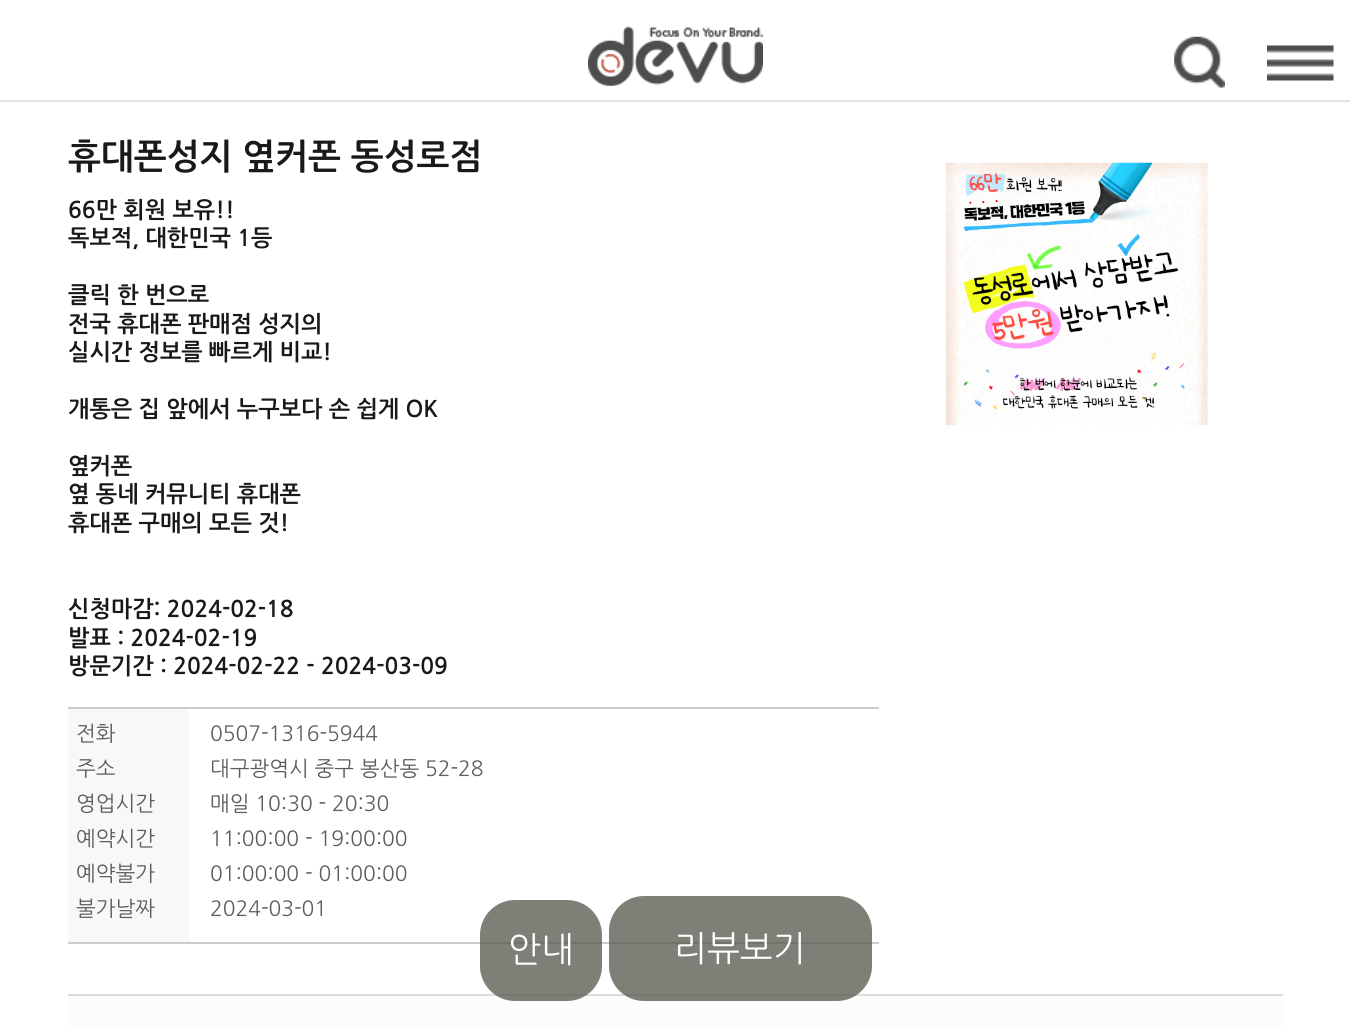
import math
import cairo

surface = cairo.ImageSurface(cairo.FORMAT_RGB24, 1350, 1027)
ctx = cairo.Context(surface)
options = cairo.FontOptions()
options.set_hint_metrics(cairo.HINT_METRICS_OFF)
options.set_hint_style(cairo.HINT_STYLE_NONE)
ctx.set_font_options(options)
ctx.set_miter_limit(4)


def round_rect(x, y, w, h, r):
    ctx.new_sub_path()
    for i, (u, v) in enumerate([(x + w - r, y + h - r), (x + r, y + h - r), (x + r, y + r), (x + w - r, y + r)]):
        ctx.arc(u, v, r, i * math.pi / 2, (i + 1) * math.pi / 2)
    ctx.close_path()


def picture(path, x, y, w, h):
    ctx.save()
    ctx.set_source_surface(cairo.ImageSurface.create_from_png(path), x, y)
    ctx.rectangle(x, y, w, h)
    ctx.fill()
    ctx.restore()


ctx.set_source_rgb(1, 1, 1)
ctx.paint()
ctx.set_source_rgb(0.898, 0.882, 0.882)
ctx.rectangle(0, 100, 1350, 2)
ctx.fill()
picture("img1.png", 588, 26, 175, 60)
picture("img2.png", 1174, 36, 51, 52)
picture("img3.png", 1267, 45, 67, 36)
ctx.select_font_face("NanumGothic", cairo.FONT_SLANT_NORMAL, cairo.FONT_WEIGHT_BOLD)
ctx.set_font_size(35)
ctx.set_source_rgb(0.098, 0.098, 0.098)
ctx.move_to(68, 169)
ctx.show_text("휴대폰성지 옆커폰 동성로점")
ctx.set_font_size(22.75)
ctx.move_to(68, 218)
ctx.show_text("66만 회원 보유!!")
ctx.move_to(68, 246)
ctx.show_text("독보적, 대한민국 1등")
ctx.move_to(68, 303)
ctx.show_text("클릭 한 번으로")
ctx.move_to(68, 332)
ctx.show_text("전국 휴대폰 판매점 성지의")
ctx.move_to(68, 360)
ctx.show_text("실시간 정보를 빠르게 비교!")
ctx.move_to(68, 417)
ctx.show_text("개통은 집 앞에서 누구보다 손 쉽게 OK")
ctx.move_to(68, 474)
ctx.show_text("옆커폰")
ctx.move_to(68, 502)
ctx.show_text("옆 동네 커뮤니티 휴대폰")
ctx.move_to(68, 531)
ctx.show_text("휴대폰 구매의 모든 것!")
ctx.move_to(68, 617)
ctx.show_text("신청마감: 2024-02-18")
ctx.move_to(68, 646)
ctx.show_text("발표 : 2024-02-19")
ctx.move_to(68, 674)
ctx.show_text("방문기간 : 2024-02-22 - 2024-03-09")
ctx.set_source_rgb(0.8, 0.8, 0.8)
ctx.rectangle(68, 707, 811, 2)
ctx.fill()
ctx.rectangle(68, 942, 811, 2)
ctx.fill()
ctx.set_source_rgb(0.969, 0.969, 0.969)
ctx.rectangle(68, 709, 121, 233)
ctx.fill()
ctx.select_font_face("NanumGothic")
ctx.set_font_size(21)
ctx.set_source_rgb(0.361, 0.361, 0.361)
ctx.move_to(76, 741)
ctx.show_text("전화")
ctx.move_to(76, 776)
ctx.show_text("주소")
ctx.move_to(76, 811)
ctx.show_text("영업시간")
ctx.move_to(76, 846)
ctx.show_text("예약시간")
ctx.move_to(76, 881)
ctx.show_text("예약불가")
ctx.move_to(76, 916)
ctx.show_text("불가날짜")
ctx.move_to(210, 741)
ctx.show_text("0507-1316-5944")
ctx.move_to(210, 776)
ctx.show_text("대구광역시 중구 봉산동 52-28")
ctx.move_to(210, 811)
ctx.show_text("매일 10:30 - 20:30")
ctx.move_to(210, 846)
ctx.show_text("11:00:00 - 19:00:00")
ctx.move_to(210, 881)
ctx.show_text("01:00:00 - 01:00:00")
ctx.move_to(210, 916)
ctx.show_text("2024-03-01")
picture("img4.png", 945, 162, 263, 264)
ctx.set_source_rgb(0.867, 0.867, 0.867)
ctx.rectangle(68, 994, 1215, 2)
ctx.fill()
ctx.set_source_rgb(0.988, 0.988, 0.988)
ctx.rectangle(68, 996, 1215, 31)
ctx.fill()
ctx.set_source_rgba(0.337, 0.329, 0.29, 0.75)
round_rect(480, 900, 122, 101, 35)
ctx.fill()
ctx.set_font_size(35)
ctx.set_source_rgb(1, 1, 1)
ctx.move_to(508, 962)
ctx.show_text("안내")
ctx.set_source_rgba(0.337, 0.329, 0.29, 0.75)
round_rect(609, 896, 263, 105, 35)
ctx.fill()
ctx.set_source_rgb(1, 1, 1)
ctx.move_to(674, 961)
ctx.show_text("리뷰보기")
surface.write_to_png("page.png")
